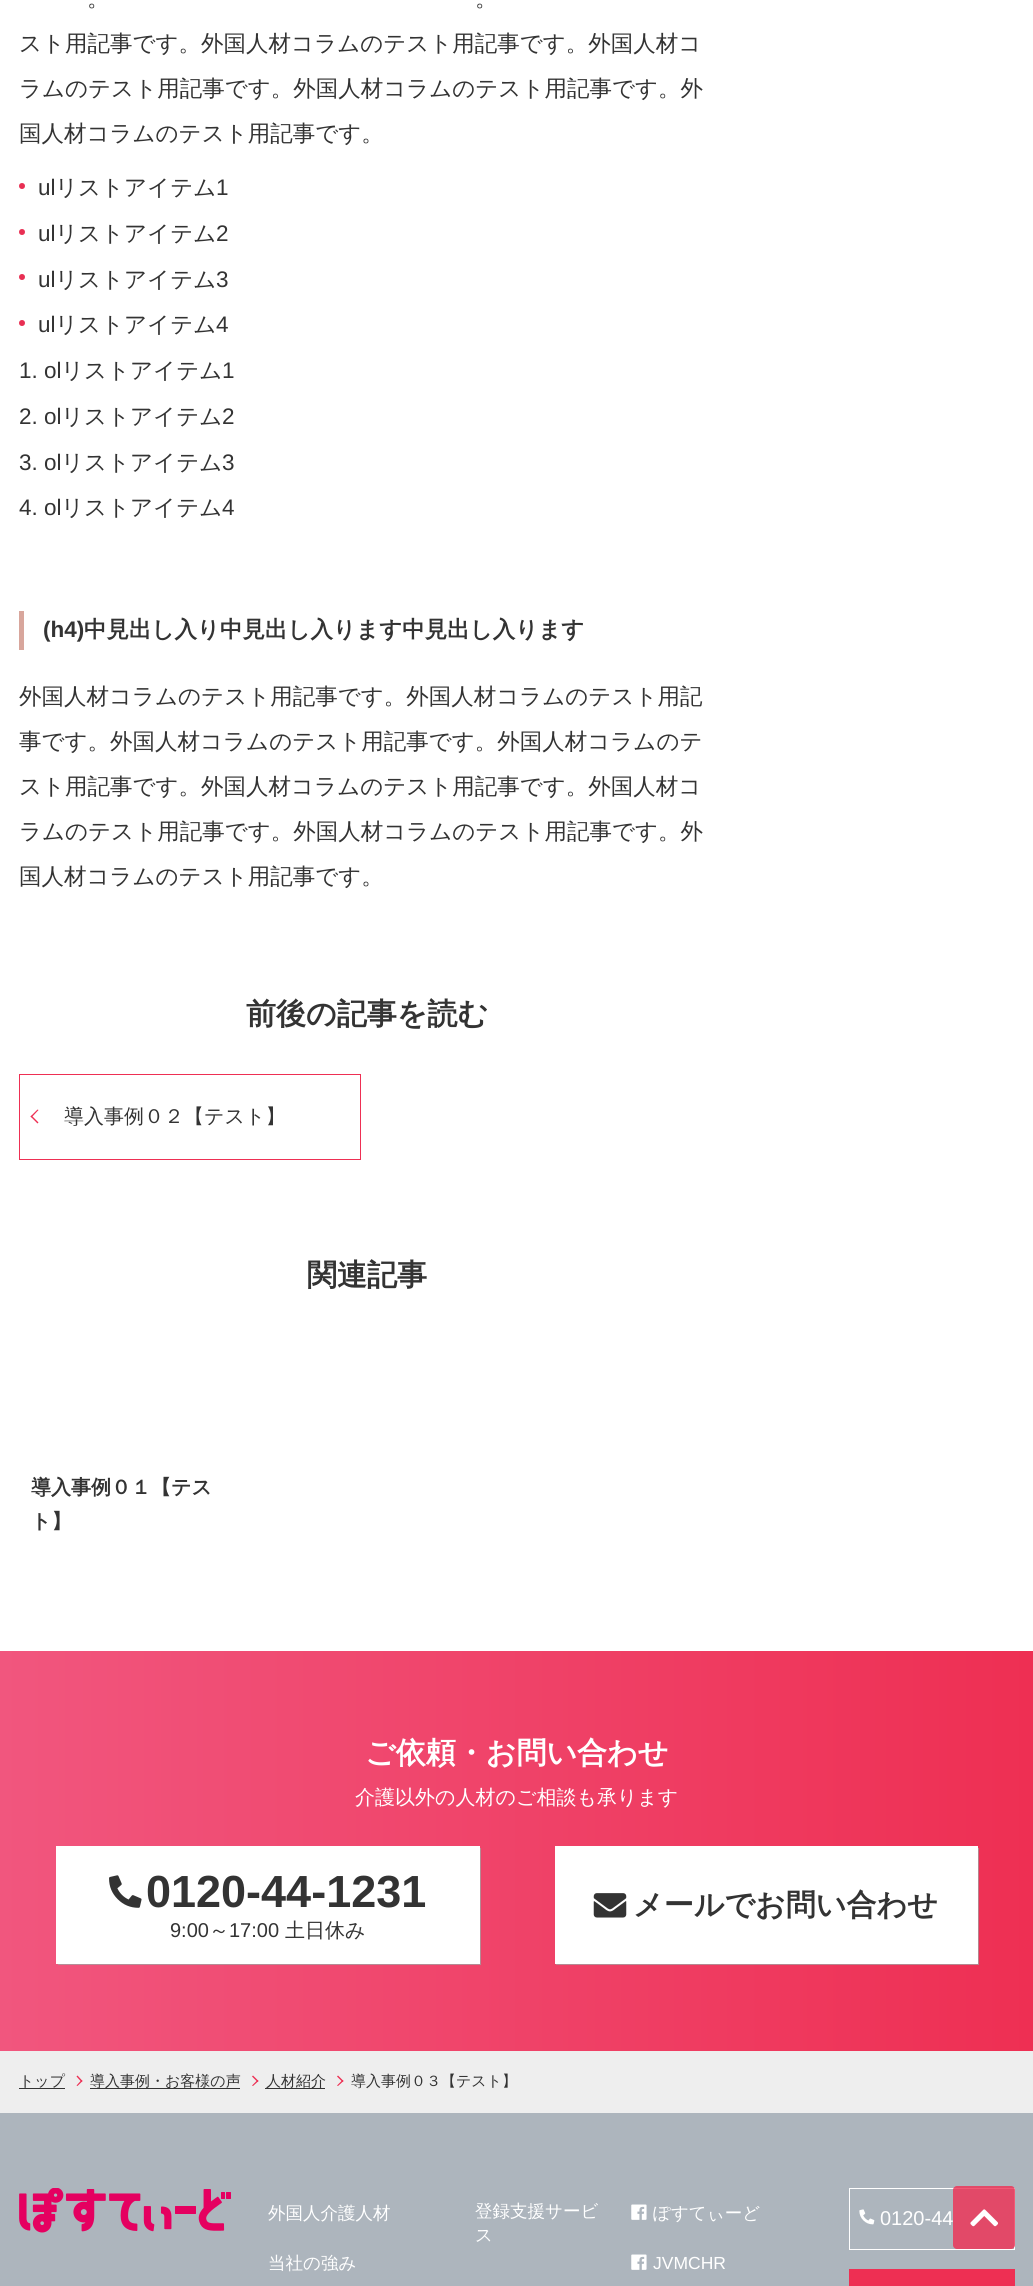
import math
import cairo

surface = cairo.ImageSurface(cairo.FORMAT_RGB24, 1033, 2286)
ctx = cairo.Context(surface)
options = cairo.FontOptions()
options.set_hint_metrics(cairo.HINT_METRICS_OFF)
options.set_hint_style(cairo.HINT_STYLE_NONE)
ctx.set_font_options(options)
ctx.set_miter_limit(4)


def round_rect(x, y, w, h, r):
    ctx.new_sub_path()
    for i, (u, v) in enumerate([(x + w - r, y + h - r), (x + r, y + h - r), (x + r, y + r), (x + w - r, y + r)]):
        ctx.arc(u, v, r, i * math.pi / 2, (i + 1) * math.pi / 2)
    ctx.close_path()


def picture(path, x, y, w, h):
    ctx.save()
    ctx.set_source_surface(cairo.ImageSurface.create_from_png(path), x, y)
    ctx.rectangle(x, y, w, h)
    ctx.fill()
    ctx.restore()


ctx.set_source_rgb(1, 1, 1)
ctx.paint()
ctx.select_font_face("WenQuanYi Zen Hei Medium")
ctx.set_font_size(22.5)
ctx.set_source_rgb(0.2, 0.2, 0.2)
ctx.move_to(87, 6)
ctx.show_text("。")
ctx.move_to(475, 6)
ctx.show_text("。")
ctx.move_to(19, 51)
ctx.show_text("スト用記事です。外国人材コラムのテスト用記事です。外国人材コ")
ctx.move_to(19, 96)
ctx.show_text("ラムのテスト用記事です。外国人材コラムのテスト用記事です。外")
ctx.move_to(19, 141)
ctx.show_text("国人材コラムのテスト用記事です。")
ctx.set_source_rgb(0.91, 0.184, 0.325)
ctx.new_path()
ctx.arc(22, 186, 3, 0, 2 * math.pi)
ctx.fill()
ctx.select_font_face("Liberation Sans")
ctx.set_source_rgb(0.2, 0.2, 0.2)
ctx.move_to(38, 195)
ctx.show_text("ul")
ctx.select_font_face("WenQuanYi Zen Hei Medium")
ctx.move_to(55, 195)
ctx.show_text("リストアイテム")
ctx.select_font_face("Liberation Sans")
ctx.move_to(216, 195)
ctx.show_text("1")
ctx.set_source_rgb(0.91, 0.184, 0.325)
ctx.new_path()
ctx.arc(22, 232, 3, 0, 2 * math.pi)
ctx.fill()
ctx.set_source_rgb(0.2, 0.2, 0.2)
ctx.move_to(38, 241)
ctx.show_text("ul")
ctx.select_font_face("WenQuanYi Zen Hei Medium")
ctx.move_to(55, 241)
ctx.show_text("リストアイテム")
ctx.select_font_face("Liberation Sans")
ctx.move_to(216, 241)
ctx.show_text("2")
ctx.set_source_rgb(0.91, 0.184, 0.325)
ctx.new_path()
ctx.arc(22, 277, 3, 0, 2 * math.pi)
ctx.fill()
ctx.set_source_rgb(0.2, 0.2, 0.2)
ctx.move_to(38, 287)
ctx.show_text("ul")
ctx.select_font_face("WenQuanYi Zen Hei Medium")
ctx.move_to(55, 287)
ctx.show_text("リストアイテム")
ctx.select_font_face("Liberation Sans")
ctx.move_to(216, 287)
ctx.show_text("3")
ctx.set_source_rgb(0.91, 0.184, 0.325)
ctx.new_path()
ctx.arc(22, 323, 3, 0, 2 * math.pi)
ctx.fill()
ctx.set_source_rgb(0.2, 0.2, 0.2)
ctx.move_to(38, 332)
ctx.show_text("ul")
ctx.select_font_face("WenQuanYi Zen Hei Medium")
ctx.move_to(55, 332)
ctx.show_text("リストアイテム")
ctx.select_font_face("Liberation Sans")
ctx.move_to(216, 332)
ctx.show_text("4")
ctx.move_to(19, 378)
ctx.show_text("1. ol")
ctx.select_font_face("WenQuanYi Zen Hei Medium")
ctx.move_to(61, 378)
ctx.show_text("リストアイテム")
ctx.select_font_face("Liberation Sans")
ctx.move_to(222, 378)
ctx.show_text("1")
ctx.move_to(19, 424)
ctx.show_text("2. ol")
ctx.select_font_face("WenQuanYi Zen Hei Medium")
ctx.move_to(61, 424)
ctx.show_text("リストアイテム")
ctx.select_font_face("Liberation Sans")
ctx.move_to(222, 424)
ctx.show_text("2")
ctx.move_to(19, 470)
ctx.show_text("3. ol")
ctx.select_font_face("WenQuanYi Zen Hei Medium")
ctx.move_to(61, 470)
ctx.show_text("リストアイテム")
ctx.select_font_face("Liberation Sans")
ctx.move_to(222, 470)
ctx.show_text("3")
ctx.move_to(19, 515)
ctx.show_text("4. ol")
ctx.select_font_face("WenQuanYi Zen Hei Medium")
ctx.move_to(61, 515)
ctx.show_text("リストアイテム")
ctx.select_font_face("Liberation Sans")
ctx.move_to(222, 515)
ctx.show_text("4")
ctx.set_source_rgb(0.847, 0.651, 0.612)
ctx.rectangle(19, 611, 5, 39)
ctx.fill()
ctx.select_font_face("Liberation Sans", cairo.FONT_SLANT_NORMAL, cairo.FONT_WEIGHT_BOLD)
ctx.set_source_rgb(0.2, 0.2, 0.2)
ctx.move_to(43, 637)
ctx.show_text("(h4)")
ctx.select_font_face("WenQuanYi Zen Hei", cairo.FONT_SLANT_NORMAL, cairo.FONT_WEIGHT_BOLD)
ctx.move_to(84, 637)
ctx.show_text("中見出し入り中見出し入ります中見出し入ります")
ctx.select_font_face("WenQuanYi Zen Hei Medium")
ctx.move_to(19, 704)
ctx.show_text("外国人材コラムのテスト用記事です。外国人材コラムのテスト用記")
ctx.move_to(19, 749)
ctx.show_text("事です。外国人材コラムのテスト用記事です。外国人材コラムのテ")
ctx.move_to(19, 794)
ctx.show_text("スト用記事です。外国人材コラムのテスト用記事です。外国人材コ")
ctx.move_to(19, 839)
ctx.show_text("ラムのテスト用記事です。外国人材コラムのテスト用記事です。外")
ctx.move_to(19, 884)
ctx.show_text("国人材コラムのテスト用記事です。")
ctx.select_font_face("WenQuanYi Zen Hei", cairo.FONT_SLANT_NORMAL, cairo.FONT_WEIGHT_BOLD)
ctx.set_font_size(30)
ctx.move_to(246, 1024)
ctx.show_text("前後の記事を読む")
ctx.rectangle(19.5, 1074.5, 341, 85)
ctx.set_source_rgb(0.933, 0.184, 0.325)
ctx.set_line_width(1)
ctx.stroke()
ctx.new_path()
ctx.move_to(37.5, 1123.5)
ctx.line_to(30.5, 1116.5)
ctx.line_to(31.5, 1115.5)
ctx.line_to(38.5, 1122.5)
ctx.close_path()
ctx.fill()
ctx.new_path()
ctx.move_to(31.5, 1117.5)
ctx.line_to(30.5, 1116.5)
ctx.line_to(37.5, 1109.5)
ctx.line_to(38.5, 1110)
ctx.close_path()
ctx.fill()
ctx.select_font_face("WenQuanYi Zen Hei Medium")
ctx.set_font_size(20)
ctx.set_source_rgb(0.2, 0.2, 0.2)
ctx.move_to(64, 1123)
ctx.show_text("導入事例０２【テスト】")
ctx.select_font_face("WenQuanYi Zen Hei", cairo.FONT_SLANT_NORMAL, cairo.FONT_WEIGHT_BOLD)
ctx.set_font_size(30)
ctx.move_to(307, 1285)
ctx.show_text("関連記事")
ctx.set_font_size(20)
ctx.move_to(31, 1494)
ctx.show_text("導入事例０１【テス")
ctx.move_to(31, 1528)
ctx.show_text("ト】")
gradient = cairo.LinearGradient(0, 1851, 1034, 1851)
gradient.add_color_stop_rgba(0, 0.945, 0.337, 0.494, 1)
gradient.add_color_stop_rgba(1, 0.933, 0.184, 0.325, 1)
ctx.set_source(gradient)
ctx.rectangle(0, 1651, 1033, 400)
ctx.fill()
ctx.set_font_size(30)
ctx.set_source_rgb(1, 1, 1)
ctx.move_to(365, 1763)
ctx.show_text("ご依頼・お問い合わせ")
ctx.select_font_face("WenQuanYi Zen Hei Medium")
ctx.set_font_size(20)
ctx.move_to(355, 1804)
ctx.show_text("介護以外の人材のご相談も承ります")
ctx.set_source_rgba(0.635, 0.635, 0.635, 0.75)
ctx.new_path()
ctx.move_to(58, 1964)
ctx.line_to(58, 1965)
ctx.line_to(481, 1965)
ctx.line_to(481, 1848)
ctx.line_to(480, 1848)
ctx.line_to(480, 1964)
ctx.close_path()
ctx.fill()
ctx.set_source_rgb(1, 1, 1)
ctx.rectangle(56, 1846, 424, 118)
ctx.fill()
picture("img1.png", 109, 1875, 33, 33)
ctx.select_font_face("Liberation Sans", cairo.FONT_SLANT_NORMAL, cairo.FONT_WEIGHT_BOLD)
ctx.set_font_size(45)
ctx.set_source_rgb(0.2, 0.2, 0.2)
ctx.move_to(146, 1907)
ctx.show_text("0120-44-1231")
ctx.select_font_face("Liberation Sans")
ctx.set_font_size(20)
ctx.move_to(170, 1937)
ctx.show_text("9:00")
ctx.select_font_face("WenQuanYi Zen Hei Medium")
ctx.move_to(209, 1937)
ctx.show_text("～")
ctx.select_font_face("Liberation Sans")
ctx.move_to(229, 1937)
ctx.show_text("17:00")
ctx.select_font_face("WenQuanYi Zen Hei Medium")
ctx.move_to(285, 1937)
ctx.show_text("土日休み")
ctx.set_source_rgba(0.635, 0.635, 0.635, 0.75)
ctx.new_path()
ctx.move_to(556, 1964)
ctx.line_to(556, 1965)
ctx.line_to(979, 1965)
ctx.line_to(979, 1848)
ctx.line_to(978, 1848)
ctx.line_to(978, 1964)
ctx.close_path()
ctx.fill()
ctx.set_source_rgb(1, 1, 1)
ctx.rectangle(555, 1846, 423, 118)
ctx.fill()
picture("img2.png", 593, 1893, 34, 25)
ctx.select_font_face("WenQuanYi Zen Hei", cairo.FONT_SLANT_NORMAL, cairo.FONT_WEIGHT_BOLD)
ctx.set_font_size(30)
ctx.set_source_rgb(0.2, 0.2, 0.2)
ctx.move_to(633, 1915)
ctx.show_text("メールでお問い合わせ")
ctx.set_source_rgb(0.933, 0.933, 0.933)
ctx.rectangle(0, 2051, 1033, 62)
ctx.fill()
ctx.select_font_face("WenQuanYi Zen Hei Medium")
ctx.set_font_size(15)
ctx.set_source_rgb(0.2, 0.2, 0.2)
ctx.move_to(19, 2086)
ctx.show_text("トップ")
ctx.rectangle(19, 2088, 46, 1)
ctx.fill()
ctx.set_source_rgb(0.925, 0.184, 0.325)
ctx.new_path()
ctx.move_to(77.5, 2075.5)
ctx.line_to(82.5, 2081)
ctx.line_to(81.5, 2082)
ctx.line_to(76.5, 2076.5)
ctx.close_path()
ctx.fill()
ctx.new_path()
ctx.move_to(81.5, 2080)
ctx.line_to(82.5, 2081)
ctx.line_to(77.5, 2086)
ctx.line_to(76.5, 2085.5)
ctx.close_path()
ctx.fill()
ctx.set_source_rgb(0.2, 0.2, 0.2)
ctx.rectangle(90, 2088, 150, 1)
ctx.fill()
ctx.move_to(90, 2086)
ctx.show_text("導入事例・お客様の声")
ctx.set_source_rgb(0.925, 0.184, 0.325)
ctx.new_path()
ctx.move_to(253, 2075.5)
ctx.line_to(258.5, 2081)
ctx.line_to(257.5, 2082)
ctx.line_to(252, 2076.5)
ctx.close_path()
ctx.fill()
ctx.new_path()
ctx.move_to(257.5, 2080)
ctx.line_to(258.5, 2081)
ctx.line_to(253, 2086)
ctx.line_to(252, 2085.5)
ctx.close_path()
ctx.fill()
ctx.set_source_rgb(0.2, 0.2, 0.2)
ctx.rectangle(265, 2088, 60, 1)
ctx.fill()
ctx.move_to(266, 2086)
ctx.show_text("人材紹介")
ctx.set_source_rgb(0.925, 0.184, 0.325)
ctx.new_path()
ctx.move_to(338, 2075.5)
ctx.line_to(343.5, 2081)
ctx.line_to(342.5, 2082)
ctx.line_to(337, 2076.5)
ctx.close_path()
ctx.fill()
ctx.new_path()
ctx.move_to(342.5, 2080)
ctx.line_to(343.5, 2081)
ctx.line_to(338, 2086)
ctx.line_to(337, 2085.5)
ctx.close_path()
ctx.fill()
ctx.set_source_rgb(0.2, 0.2, 0.2)
ctx.move_to(351, 2086)
ctx.show_text("導入事例０３【テスト】")
ctx.set_source_rgb(0.678, 0.71, 0.741)
ctx.rectangle(0, 2113, 1033, 173)
ctx.fill()
picture("img3.png", 19, 2188, 212, 45)
ctx.set_font_size(17.5)
ctx.set_source_rgb(1, 1, 1)
ctx.move_to(268, 2219)
ctx.show_text("外国人介護人材")
ctx.move_to(268, 2269)
ctx.show_text("当社の強み")
ctx.move_to(475, 2217)
ctx.show_text("登録支援サービ")
ctx.move_to(475, 2241)
ctx.show_text("ス")
picture("img4.png", 631, 2204, 16, 16)
ctx.move_to(653, 2219)
ctx.show_text("ぽすてぃーど")
picture("img4.png", 631, 2254, 16, 16)
ctx.select_font_face("Liberation Sans")
ctx.move_to(653, 2269)
ctx.show_text("JVMCHR")
ctx.rectangle(849.5, 2188.5, 165, 61)
ctx.stroke()
picture("img5.png", 859, 2209, 16, 16)
ctx.set_font_size(20)
ctx.move_to(880, 2225)
ctx.show_text("0120-44")
ctx.set_source_rgb(0.933, 0.184, 0.325)
ctx.rectangle(849, 2269, 166, 17)
ctx.fill()
ctx.set_source_rgba(0.933, 0.184, 0.325, 0.8)
round_rect(953, 2186, 62, 63, 4)
ctx.fill()
picture("img6.png", 970, 2209, 28, 18)
surface.write_to_png("page.png")
